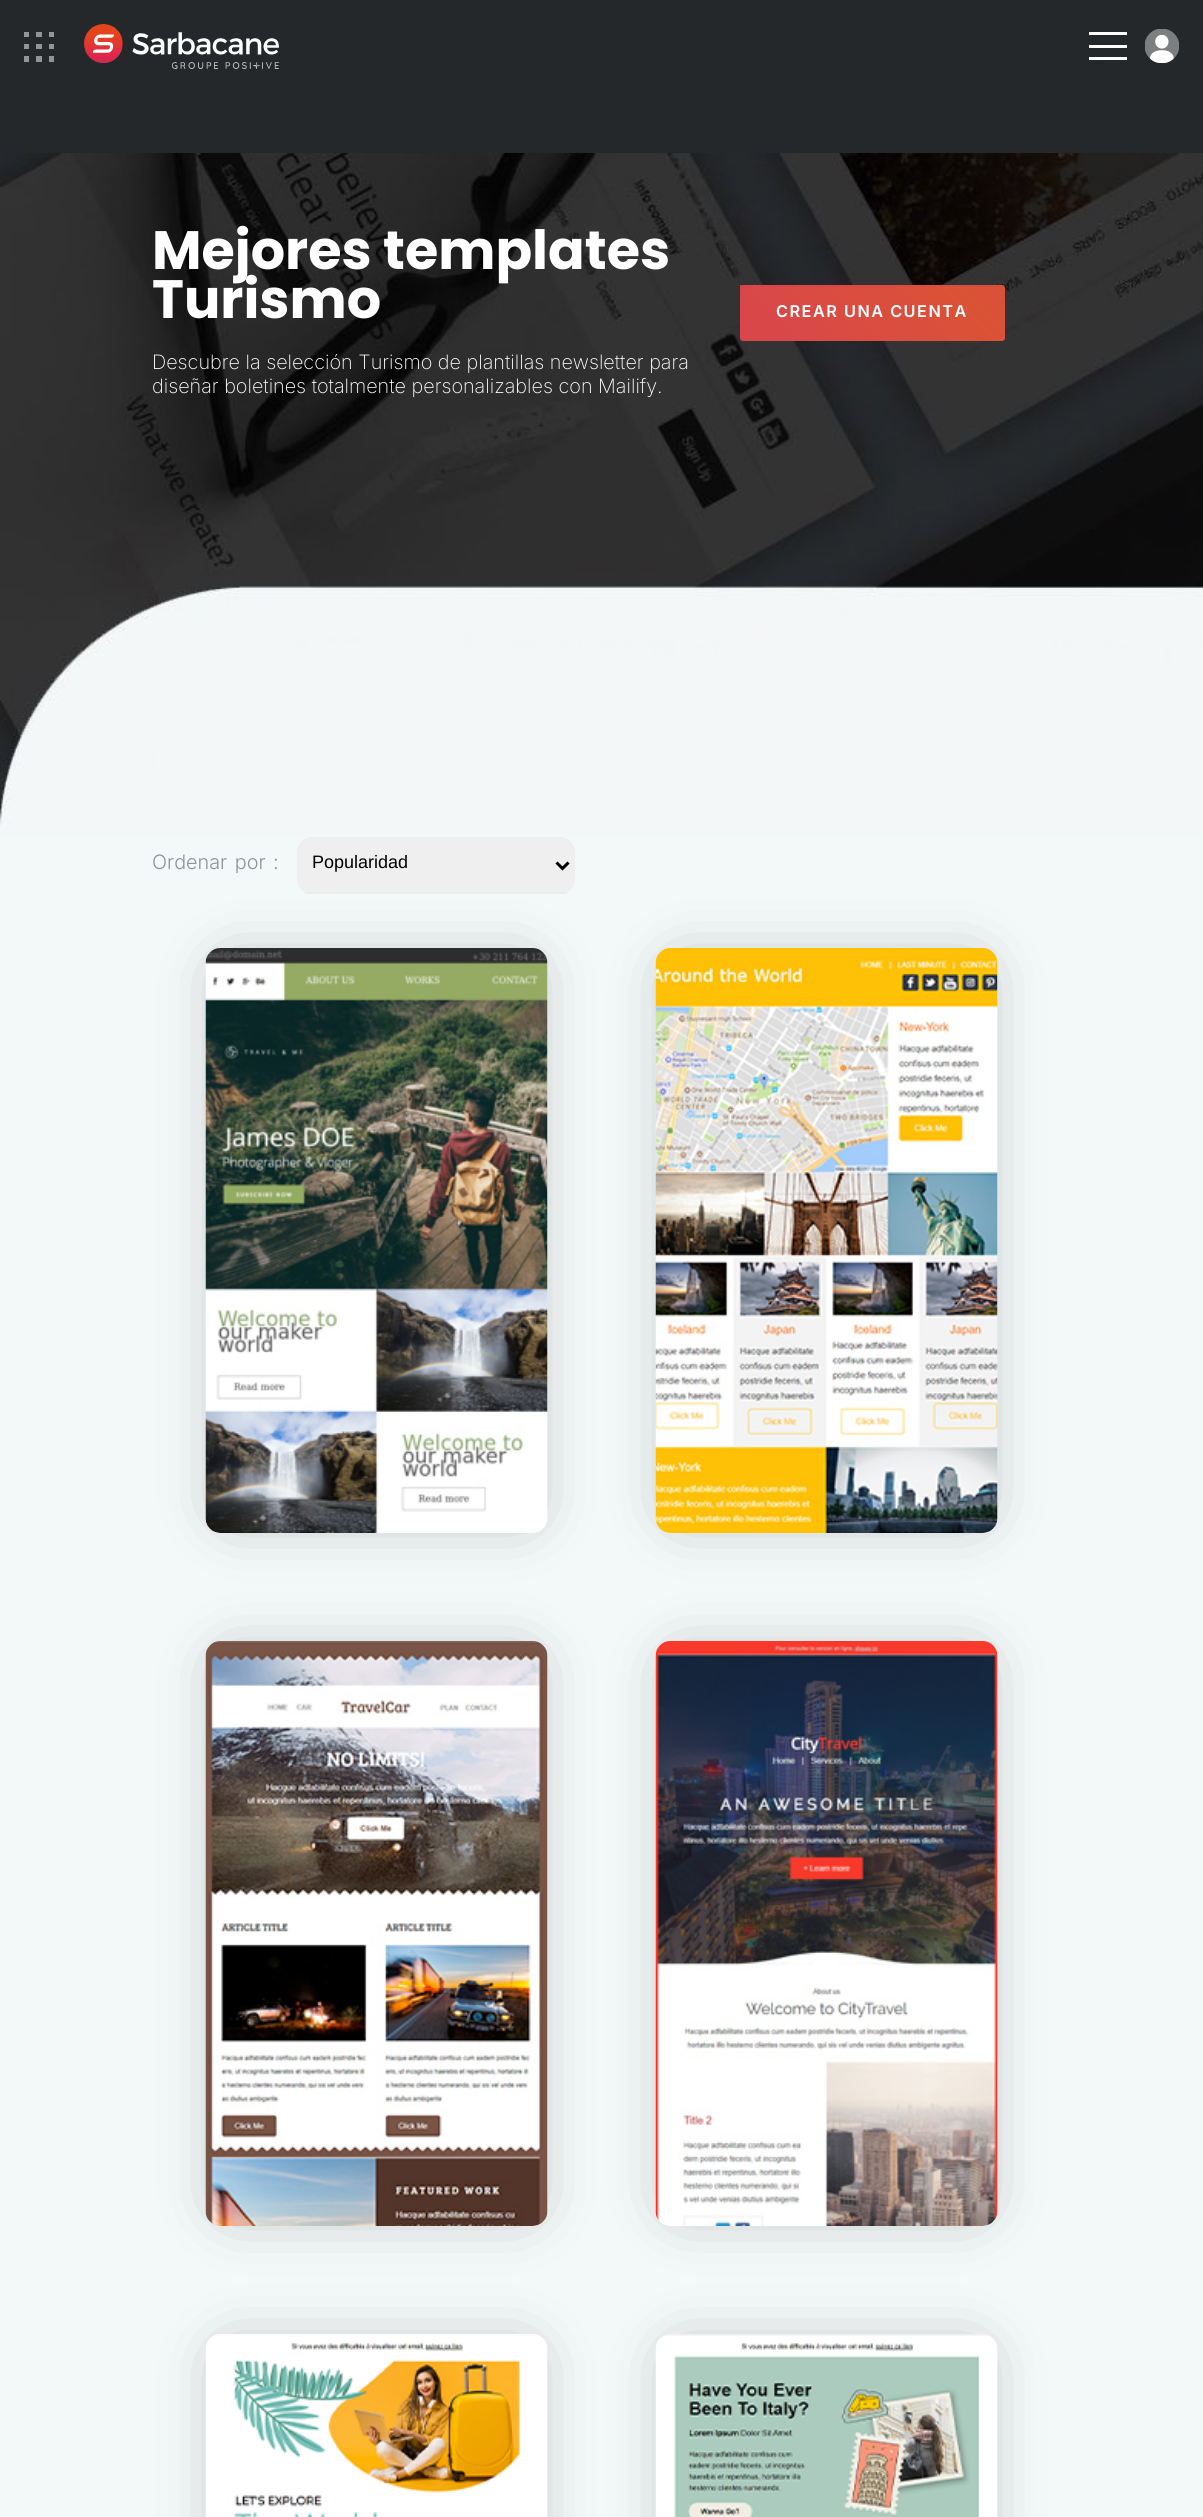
import math
import cairo

surface = cairo.ImageSurface(cairo.FORMAT_RGB24, 1203, 2517)
ctx = cairo.Context(surface)
options = cairo.FontOptions()
options.set_hint_metrics(cairo.HINT_METRICS_OFF)
options.set_hint_style(cairo.HINT_STYLE_NONE)
ctx.set_font_options(options)
ctx.set_miter_limit(4)


def spaced_text(x, y, s, letter, word):
    ctx.move_to(x, y)
    for ch in s:
        ctx.show_text(ch)
        ctx.rel_move_to(letter + word * (ch == ' '), 0)


def round_rect(x, y, w, h, r):
    ctx.new_sub_path()
    for i, (u, v) in enumerate([(x + w - r, y + h - r), (x + r, y + h - r), (x + r, y + r), (x + w - r, y + r)]):
        ctx.arc(u, v, r, i * math.pi / 2, (i + 1) * math.pi / 2)
    ctx.close_path()


def shadow(x, y, w, h, r, blur, alpha):
    ctx.push_group_with_content(cairo.CONTENT_ALPHA)
    ctx.set_operator(cairo.OPERATOR_SOURCE)
    for i in range(15, -16, -2):
        e = blur * i / 6
        if min(w, h) + 2 * e > 0:
            ctx.set_source_rgba(0, 0, 0, alpha * math.erfc((i - 1) / 8.5) / 2)
            round_rect(x - e, y - e, w + 2 * e, h + 2 * e, max(0, min(r + e + blur * .6, min(w, h) / 2 + e)))
            ctx.fill()
    ctx.mask(ctx.pop_group())


def picture(path, x, y, w, h):
    ctx.save()
    ctx.set_source_surface(cairo.ImageSurface.create_from_png(path), x, y)
    ctx.rectangle(x, y, w, h)
    ctx.fill()
    ctx.restore()


ctx.set_source_rgb(1, 1, 1)
ctx.paint()
ctx.set_source_rgb(0.141, 0.157, 0.169)
ctx.rectangle(0, 0, 1203, 153)
ctx.fill()
picture("img1.png", 24, 32, 30, 30)
picture("img2.png", 84, 24, 195, 45)
ctx.set_source_rgb(1, 1, 1)
ctx.rectangle(1089, 32, 38, 3)
ctx.fill()
ctx.rectangle(1089, 45, 38, 3)
ctx.fill()
ctx.rectangle(1089, 57, 38, 3)
ctx.fill()
picture("img3.png", 1145, 29, 34, 34)
picture("img4.png", 0, 153, 1203, 684)
ctx.select_font_face("Poppins", cairo.FONT_SLANT_NORMAL, cairo.FONT_WEIGHT_BOLD)
ctx.set_font_size(54)
ctx.move_to(152, 269)
ctx.show_text("Mejores templates")
ctx.move_to(152, 318)
ctx.show_text("Turismo")
ctx.select_font_face("Inter ExtraLight")
ctx.set_font_size(19.8)
ctx.move_to(152, 369)
ctx.show_text("Descubre la selección Turismo de plantillas newsletter para")
ctx.move_to(152, 393)
ctx.show_text("diseñar boletines totalmente personalizables con Mailify.")
gradient = cairo.LinearGradient(321, 392, 636, 76)
gradient.add_color_stop_rgba(0, 0.851, 0.263, 0.318, 1)
gradient.add_color_stop_rgba(0.5, 0.855, 0.322, 0.212, 1)
gradient.add_color_stop_rgba(1, 0.851, 0.263, 0.318, 1)
ctx.set_source(gradient)
ctx.rectangle(740, 285, 1, 2)
ctx.fill()
ctx.save()
round_rect(740, 285, 265, 56, 3)
ctx.clip()
gradient = cairo.LinearGradient(846, 392, 1161, 76)
gradient.add_color_stop_rgba(0, 0.851, 0.263, 0.318, 1)
gradient.add_color_stop_rgba(0.5, 0.855, 0.322, 0.212, 1)
gradient.add_color_stop_rgba(1, 0.851, 0.263, 0.318, 1)
ctx.set_source(gradient)
ctx.rectangle(741, 285, 264, 2)
ctx.fill()
gradient = cairo.LinearGradient(321, 497, 636, 181)
gradient.add_color_stop_rgba(0, 0.851, 0.263, 0.318, 1)
gradient.add_color_stop_rgba(0.5, 0.855, 0.322, 0.212, 1)
gradient.add_color_stop_rgba(1, 0.851, 0.263, 0.318, 1)
ctx.set_source(gradient)
ctx.rectangle(740, 287, 1, 54)
ctx.fill()
gradient = cairo.LinearGradient(846, 497, 1161, 181)
gradient.add_color_stop_rgba(0, 0.851, 0.263, 0.318, 1)
gradient.add_color_stop_rgba(0.5, 0.855, 0.322, 0.212, 1)
gradient.add_color_stop_rgba(1, 0.851, 0.263, 0.318, 1)
ctx.set_source(gradient)
ctx.new_path()
ctx.move_to(741, 287)
ctx.line_to(1005, 287)
ctx.line_to(1005, 338)
ctx.curve_to(1005, 339.5, 1003.5, 341, 1002, 341)
ctx.line_to(741, 341)
ctx.close_path()
ctx.fill()
ctx.restore()
ctx.select_font_face("Inter SemiBold")
ctx.set_font_size(16.25)
ctx.set_source_rgb(1, 1, 1)
spaced_text(776, 317, "CREAR UNA CUENTA", 1.5, 0)
ctx.set_source_rgb(0.953, 0.969, 0.973)
ctx.rectangle(0, 837, 1203, 1680)
ctx.fill()
ctx.select_font_face("Inter Light")
ctx.set_font_size(19.8)
ctx.set_source_rgb(0.537, 0.58, 0.608)
spaced_text(152, 869, "Ordenar por :", 0, 2)
ctx.set_source_rgb(0.937, 0.937, 0.937)
round_rect(297, 837, 278, 57, 15)
ctx.fill()
ctx.set_source_rgb(0.929, 0.929, 0.929)
ctx.rectangle(305, 892, 262, 2)
ctx.fill()
ctx.new_path()
ctx.move_to(556.5, 862.5)
ctx.line_to(562.5, 868.5)
ctx.line_to(568.5, 862.5)
ctx.set_source_rgb(0, 0, 0)
ctx.set_line_width(3)
ctx.stroke()
ctx.select_font_face("Liberation Sans")
ctx.set_font_size(18)
ctx.move_to(312, 868)
ctx.show_text("Popularidad")
ctx.set_source_rgb(0, 0, 0)
shadow(230, 972, 294, 537, 0, 34, 0.32)
picture("img5.png", 205, 948, 343, 585)
shadow(680, 972, 294, 537, 0, 34, 0.32)
picture("img6.png", 655, 948, 343, 585)
shadow(230, 1665, 294, 537, 0, 34, 0.32)
picture("img7.png", 205, 1641, 343, 585)
shadow(680, 1665, 294, 537, 0, 34, 0.32)
picture("img8.png", 655, 1641, 343, 585)
shadow(230, 2358, 294, 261, 0, 34, 0.32)
picture("img9.png", 205, 2334, 343, 183)
shadow(680, 2358, 294, 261, 0, 34, 0.32)
picture("img10.png", 655, 2334, 343, 183)
surface.write_to_png("page.png")
